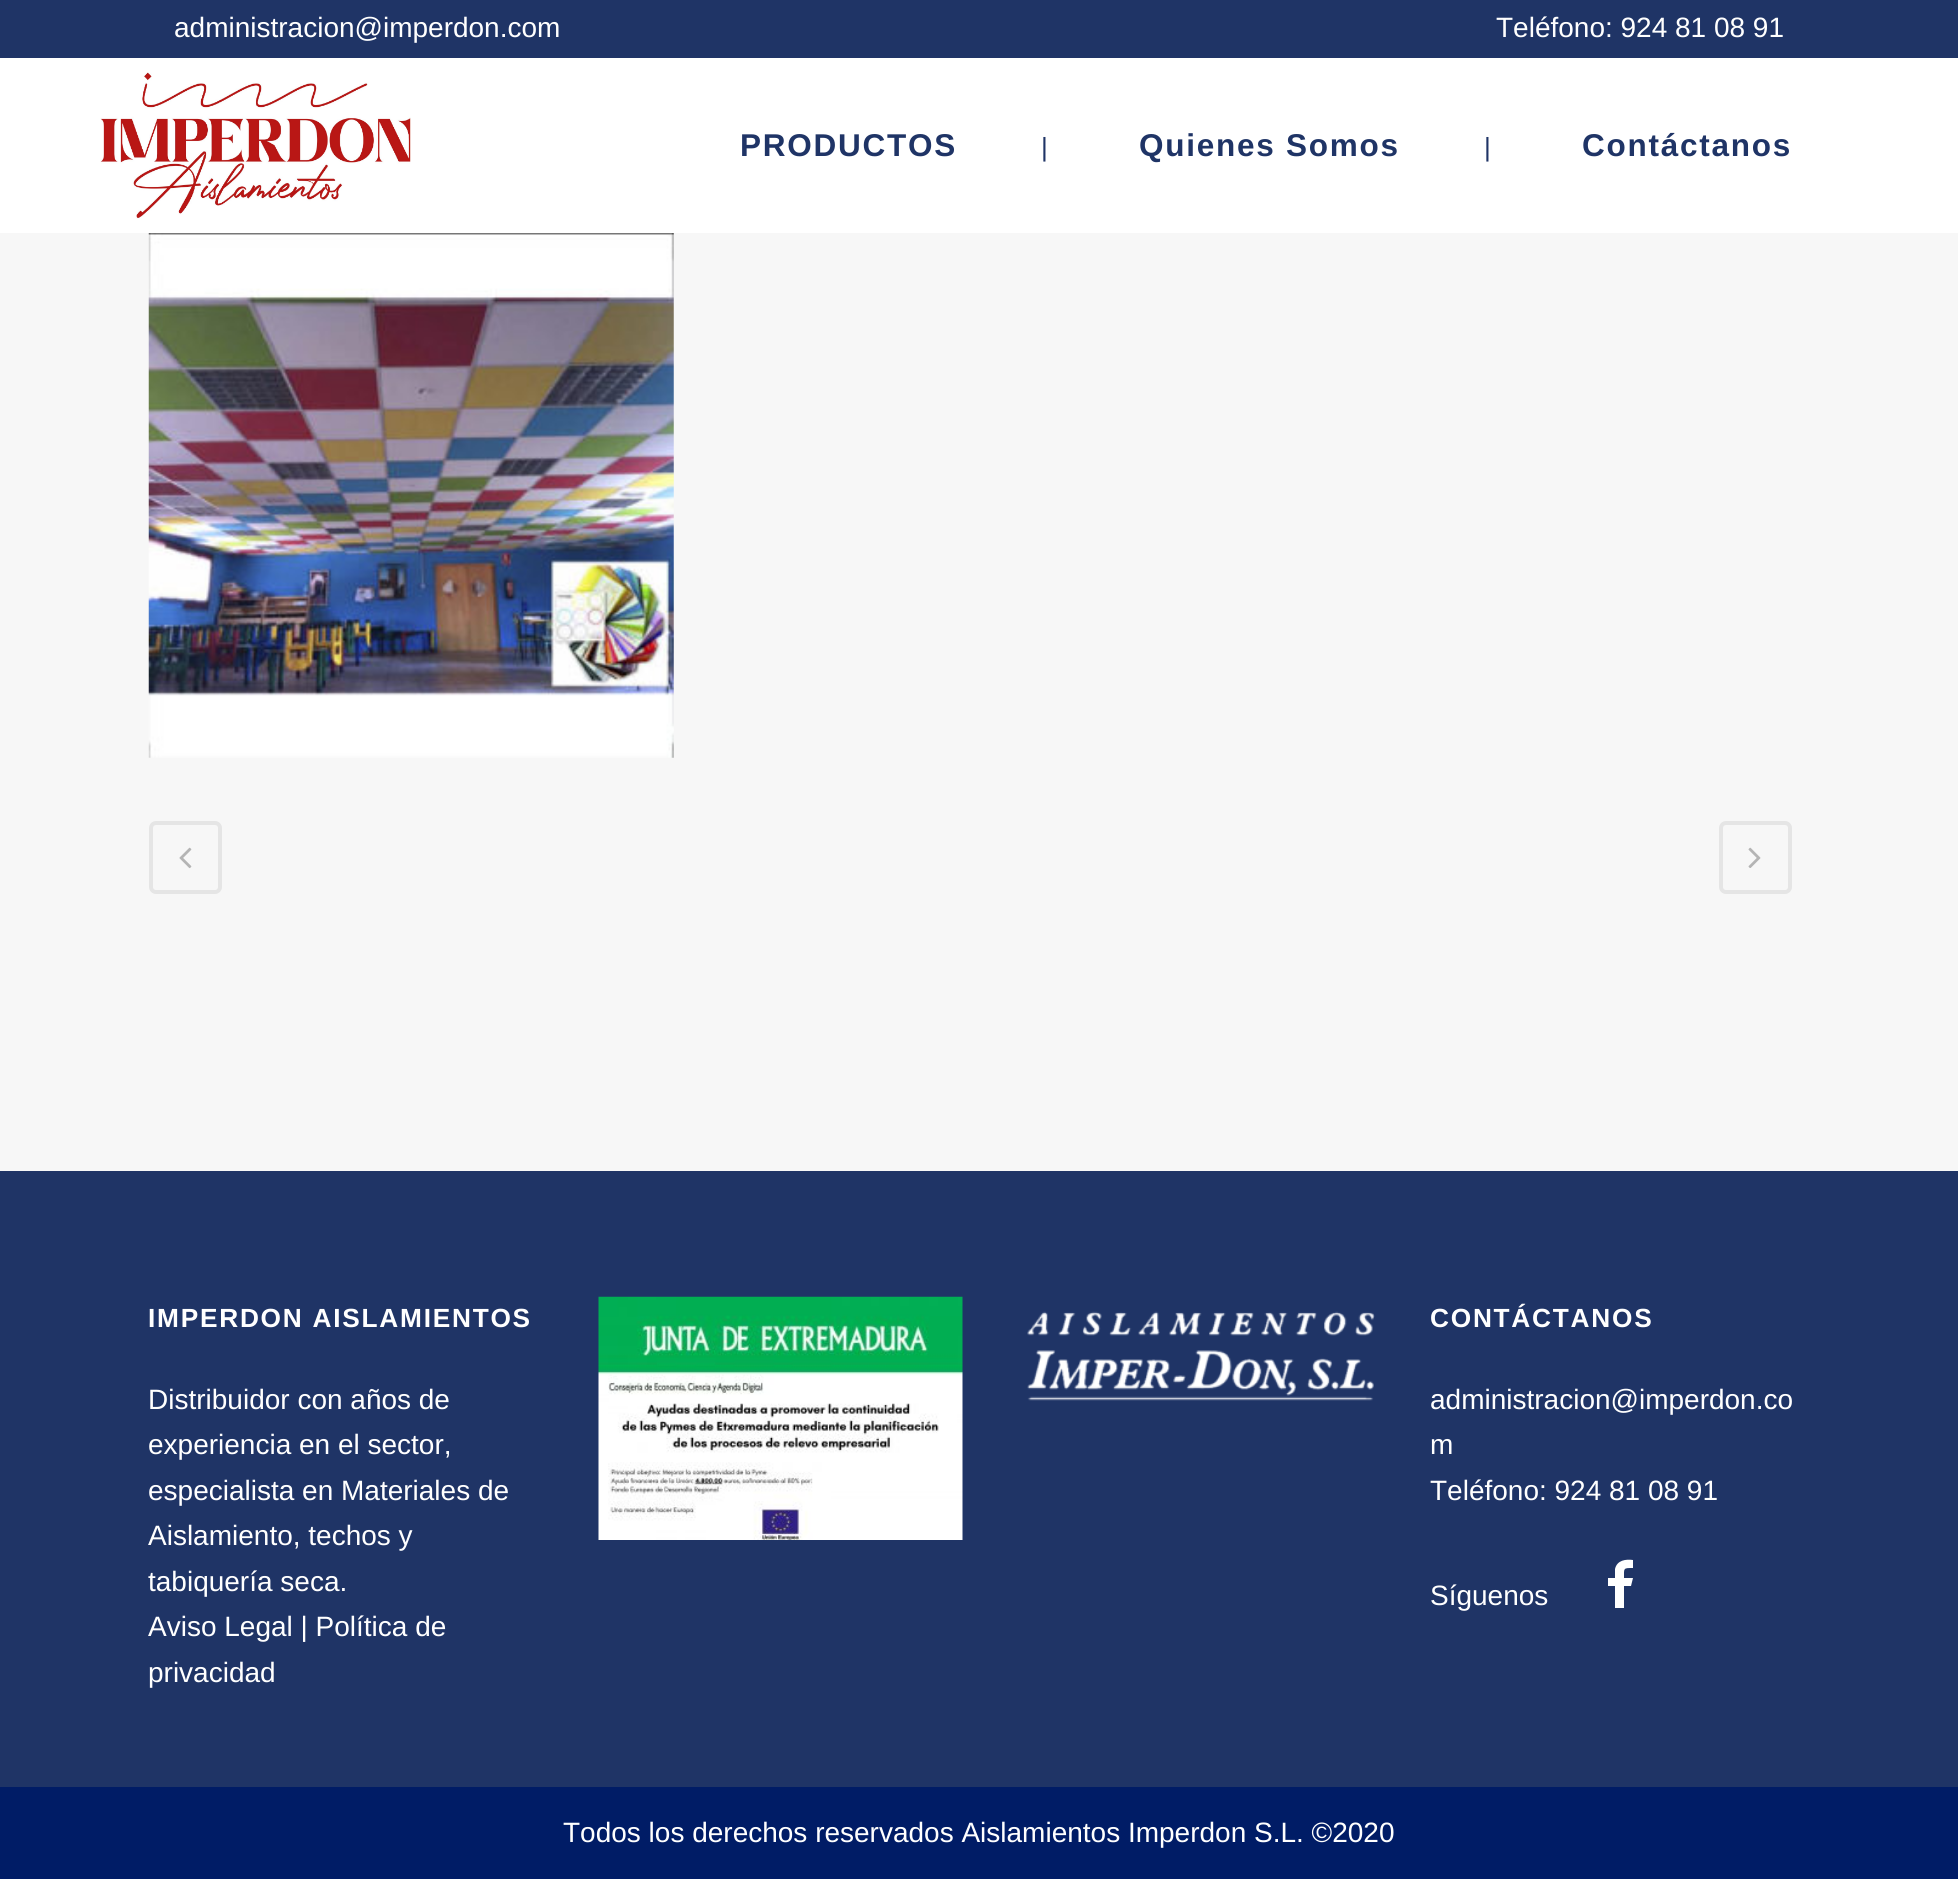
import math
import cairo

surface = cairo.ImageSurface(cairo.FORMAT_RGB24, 1958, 1879)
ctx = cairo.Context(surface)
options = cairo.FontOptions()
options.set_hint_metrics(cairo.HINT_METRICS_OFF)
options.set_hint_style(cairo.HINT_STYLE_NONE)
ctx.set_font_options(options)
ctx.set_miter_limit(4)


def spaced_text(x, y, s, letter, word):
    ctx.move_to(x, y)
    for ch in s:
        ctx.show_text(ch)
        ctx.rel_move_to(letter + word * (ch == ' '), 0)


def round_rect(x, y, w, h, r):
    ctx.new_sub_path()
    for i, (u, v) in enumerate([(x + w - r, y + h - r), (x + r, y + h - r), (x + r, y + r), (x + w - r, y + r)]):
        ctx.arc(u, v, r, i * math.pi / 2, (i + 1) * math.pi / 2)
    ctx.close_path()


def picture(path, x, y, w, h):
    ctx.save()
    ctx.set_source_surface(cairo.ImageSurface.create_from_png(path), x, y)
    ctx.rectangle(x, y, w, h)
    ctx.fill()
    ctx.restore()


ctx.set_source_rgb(0.965, 0.965, 0.965)
ctx.paint()
ctx.set_source_rgb(0.122, 0.204, 0.4)
ctx.rectangle(0, 0, 1958, 58)
ctx.fill()
ctx.select_font_face("Liberation Sans")
ctx.set_font_size(28)
ctx.set_source_rgb(1, 1, 1)
ctx.move_to(174, 37)
ctx.show_text("administracion@imperdon.com")
ctx.move_to(1496, 37)
ctx.show_text("Teléfono: 924 81 08 91")
ctx.rectangle(0, 58, 1958, 175)
ctx.fill()
picture("img1.png", 100, 72, 311, 147)
ctx.select_font_face("Liberation Sans", cairo.FONT_SLANT_NORMAL, cairo.FONT_WEIGHT_BOLD)
ctx.set_font_size(31.5)
ctx.set_source_rgb(0.122, 0.204, 0.4)
spaced_text(740, 156, "PRODUCTOS", 1.75, 0)
ctx.select_font_face("Liberation Sans")
ctx.set_font_size(26.25)
ctx.move_to(1041, 156)
ctx.show_text("|")
ctx.select_font_face("Liberation Sans", cairo.FONT_SLANT_NORMAL, cairo.FONT_WEIGHT_BOLD)
ctx.set_font_size(31.5)
spaced_text(1139, 156, "Quienes Somos", 1.75, 0)
ctx.select_font_face("Liberation Sans")
ctx.set_font_size(26.25)
ctx.move_to(1484, 156)
ctx.show_text("|")
ctx.select_font_face("Liberation Sans", cairo.FONT_SLANT_NORMAL, cairo.FONT_WEIGHT_BOLD)
ctx.set_font_size(31.5)
spaced_text(1582, 156, "Contáctanos", 1.75, 0)
picture("img2.png", 148, 233, 526, 525)
round_rect(151, 823, 69, 69, 5)
ctx.set_source_rgb(0.898, 0.898, 0.898)
ctx.set_line_width(4)
ctx.stroke()
picture("img3.png", 179, 847, 13, 22)
round_rect(1721, 823, 69, 69, 5)
ctx.stroke()
picture("img4.png", 1748, 847, 13, 21)
ctx.set_source_rgb(0.122, 0.204, 0.4)
ctx.rectangle(0, 1171, 1958, 616)
ctx.fill()
ctx.set_font_size(26.25)
ctx.set_source_rgb(1, 1, 1)
spaced_text(148, 1327, "IMPERDON AISLAMIENTOS", 1.75, 0)
ctx.select_font_face("Liberation Sans")
ctx.set_font_size(28)
ctx.move_to(148, 1409)
ctx.show_text("Distribuidor con años de")
ctx.move_to(148, 1454)
ctx.show_text("experiencia en el sector,")
ctx.move_to(148, 1500)
ctx.show_text("especialista en Materiales de")
ctx.move_to(148, 1545)
ctx.show_text("Aislamiento, techos y")
ctx.move_to(148, 1591)
ctx.show_text("tabiquería seca.")
ctx.move_to(148, 1636)
ctx.show_text("Aviso Legal | Política de")
ctx.move_to(148, 1682)
ctx.show_text("privacidad")
picture("img5.png", 598, 1296, 365, 244)
picture("img6.png", 1027, 1311, 348, 90)
ctx.select_font_face("Liberation Sans", cairo.FONT_SLANT_NORMAL, cairo.FONT_WEIGHT_BOLD)
ctx.set_font_size(26.25)
spaced_text(1430, 1327, "CONTÁCTANOS", 1.75, 0)
ctx.select_font_face("Liberation Sans")
ctx.set_font_size(28)
ctx.move_to(1430, 1409)
ctx.show_text("administracion@imperdon.co")
ctx.move_to(1430, 1454)
ctx.show_text("m")
ctx.move_to(1430, 1500)
ctx.show_text("Teléfono: 924 81 08 91")
ctx.move_to(1430, 1605)
ctx.show_text("Síguenos")
ctx.new_path()
ctx.move_to(1633, 1560)
ctx.line_to(1633, 1568)
ctx.curve_to(1623, 1568, 1624, 1568, 1624, 1578)
ctx.line_to(1633, 1578)
ctx.line_to(1631, 1586)
ctx.line_to(1624, 1586)
ctx.line_to(1624, 1608)
ctx.line_to(1615, 1608)
ctx.line_to(1615, 1586)
ctx.line_to(1608, 1586)
ctx.line_to(1608, 1578)
ctx.line_to(1615, 1578)
ctx.line_to(1615, 1569)
ctx.curve_to(1617, 1560, 1626, 1559, 1633, 1560)
ctx.close_path()
ctx.fill()
ctx.set_source_rgb(0, 0.11, 0.4)
ctx.rectangle(0, 1787, 1958, 92)
ctx.fill()
ctx.set_source_rgb(1, 1, 1)
ctx.move_to(563, 1842)
ctx.show_text("Todos los derechos reservados Aislamientos Imperdon S.L. ©2020")
surface.write_to_png("page.png")
